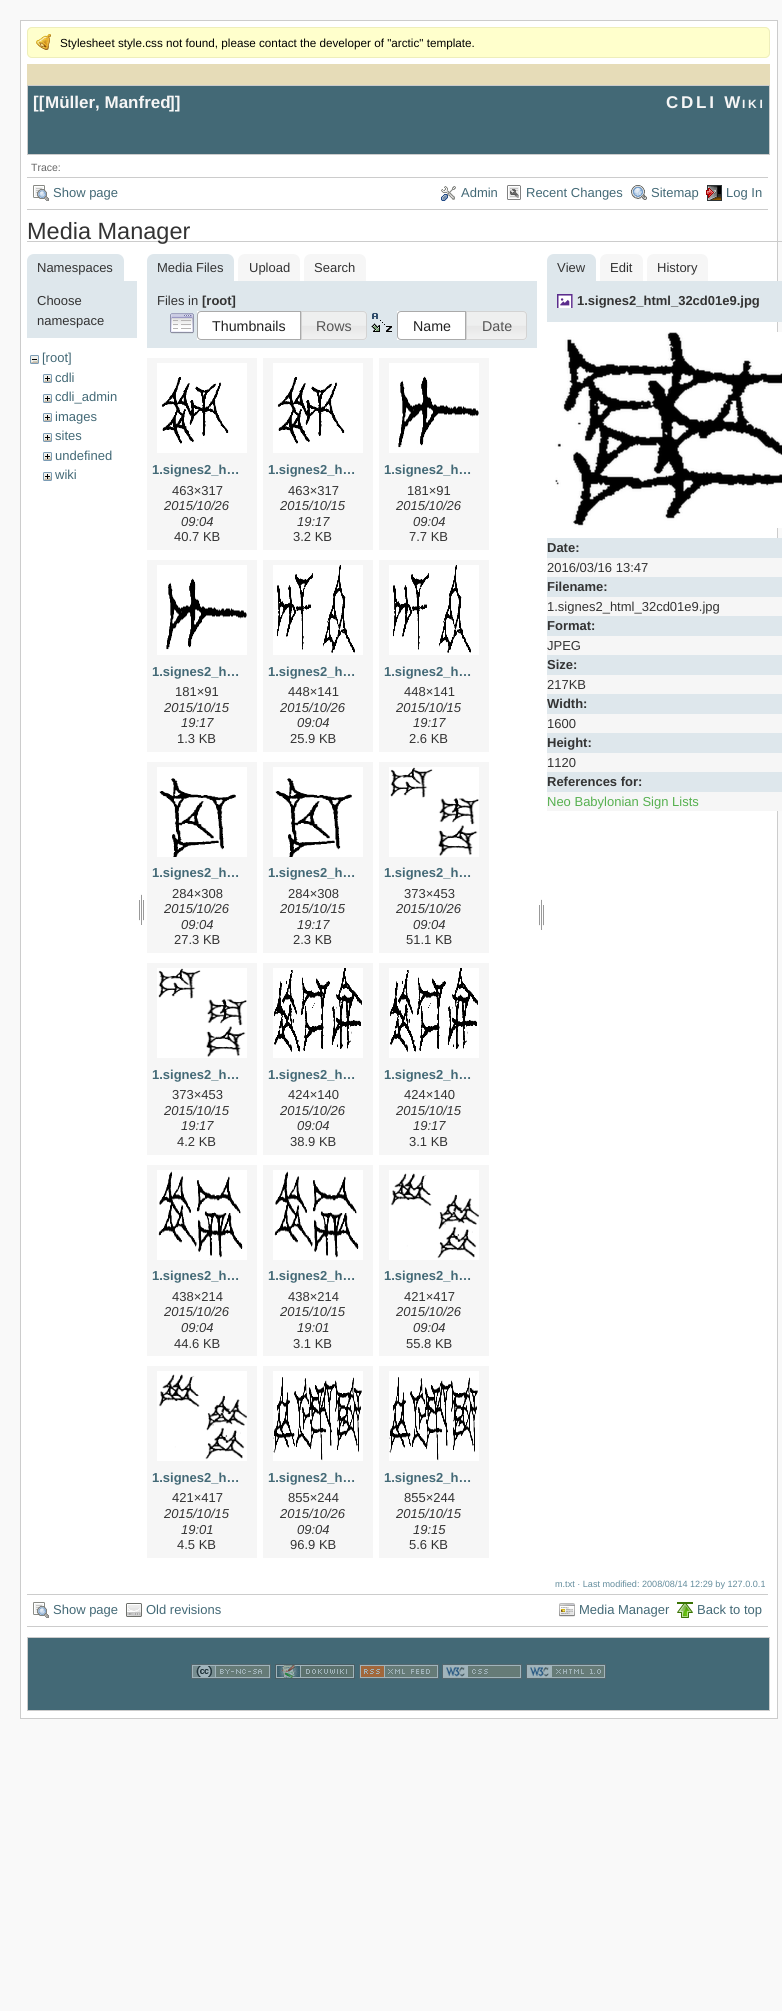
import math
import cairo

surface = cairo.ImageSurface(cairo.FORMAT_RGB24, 782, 2011)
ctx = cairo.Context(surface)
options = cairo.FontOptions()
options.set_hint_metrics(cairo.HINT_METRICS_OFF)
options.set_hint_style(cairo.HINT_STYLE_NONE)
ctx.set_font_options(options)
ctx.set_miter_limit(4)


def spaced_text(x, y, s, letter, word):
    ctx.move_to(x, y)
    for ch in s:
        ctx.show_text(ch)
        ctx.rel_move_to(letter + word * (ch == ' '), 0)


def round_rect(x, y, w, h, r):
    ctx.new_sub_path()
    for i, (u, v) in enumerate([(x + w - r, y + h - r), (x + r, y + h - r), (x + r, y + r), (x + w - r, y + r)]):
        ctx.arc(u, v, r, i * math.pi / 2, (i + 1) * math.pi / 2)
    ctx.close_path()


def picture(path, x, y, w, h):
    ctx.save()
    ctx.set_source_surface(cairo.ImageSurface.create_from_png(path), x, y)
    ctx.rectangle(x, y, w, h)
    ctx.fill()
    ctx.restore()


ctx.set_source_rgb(0.973, 0.973, 0.973)
ctx.paint()
ctx.set_source_rgb(1, 1, 1)
ctx.rectangle(20.5, 20.5, 757, 1698)
ctx.fill_preserve()
ctx.set_source_rgb(0.8, 0.8, 0.8)
ctx.set_line_width(1)
ctx.stroke()
ctx.set_source_rgb(1, 1, 0.8)
round_rect(27, 27, 743, 31, 5)
ctx.fill()
picture("img1.png", 36, 34, 15, 16)
round_rect(27.5, 27.5, 742, 30, 4.5)
ctx.set_source_rgb(0.933, 0.933, 0.733)
ctx.stroke()
ctx.select_font_face("Liberation Sans")
ctx.set_font_size(11.7)
ctx.set_source_rgb(0, 0, 0)
ctx.move_to(60, 47)
ctx.show_text("Stylesheet style.css not found, please contact the developer of \"arctic\" template.")
ctx.set_source_rgb(0.902, 0.863, 0.722)
ctx.rectangle(27, 64, 743, 21)
ctx.fill()
ctx.set_source_rgb(0.263, 0.412, 0.463)
ctx.rectangle(27.5, 85.5, 742, 69)
ctx.fill_preserve()
ctx.set_source_rgb(0.8, 0.8, 0.8)
ctx.stroke()
ctx.select_font_face("Liberation Sans", cairo.FONT_SLANT_NORMAL, cairo.FONT_WEIGHT_BOLD)
ctx.set_font_size(17)
ctx.set_source_rgb(0.961, 0.961, 0.961)
ctx.move_to(33, 108)
ctx.show_text("[[")
ctx.move_to(45, 108)
ctx.show_text("Müller, Manfred")
ctx.move_to(169, 108)
ctx.show_text("]]")
spaced_text(666, 108, "CDLI W", 2.75, 0)
ctx.set_font_size(12)
spaced_text(742, 108, "IKI", 2.75, 0)
ctx.select_font_face("Liberation Sans")
ctx.set_font_size(10.5)
ctx.set_source_rgb(0.4, 0.4, 0.4)
ctx.move_to(31, 171)
ctx.show_text("Trace:")
ctx.set_source_rgb(0.8, 0.8, 0.8)
ctx.rectangle(27, 177, 741, 1)
ctx.fill()
ctx.rectangle(27, 209, 741, 1)
ctx.fill()
picture("img2.png", 33, 185, 16, 16)
ctx.set_font_size(13)
ctx.set_source_rgb(0.263, 0.412, 0.463)
ctx.move_to(53, 197)
ctx.show_text("Show page")
picture("img3.png", 441, 186, 15, 15)
ctx.move_to(461, 197)
ctx.show_text("Admin")
picture("img4.png", 507, 185, 14, 15)
ctx.move_to(526, 197)
ctx.show_text("Recent Changes")
picture("img5.png", 631, 185, 16, 15)
ctx.move_to(651, 197)
ctx.show_text("Sitemap")
picture("img6.png", 706, 185, 16, 16)
ctx.move_to(726, 197)
ctx.show_text("Log In")
ctx.set_source_rgb(0.8, 0.8, 0.8)
ctx.rectangle(27, 241, 755, 1)
ctx.fill()
ctx.set_font_size(23.5)
ctx.set_source_rgb(0.2, 0.2, 0.2)
ctx.move_to(27, 239)
ctx.show_text("Media Manager")
ctx.set_source_rgb(0.871, 0.906, 0.925)
ctx.new_path()
ctx.move_to(34, 254)
ctx.line_to(117, 254)
ctx.curve_to(121, 254, 124, 257, 124, 261)
ctx.line_to(124, 281)
ctx.line_to(27, 281)
ctx.line_to(27, 261)
ctx.curve_to(27, 257, 30, 254, 34, 254)
ctx.close_path()
ctx.fill()
ctx.set_font_size(13)
ctx.set_source_rgb(0.2, 0.2, 0.2)
ctx.move_to(37, 272)
ctx.show_text("Namespaces")
ctx.set_source_rgb(0.871, 0.906, 0.925)
ctx.rectangle(27, 281, 110, 57)
ctx.fill()
ctx.set_source_rgb(0.2, 0.2, 0.2)
ctx.move_to(37, 305)
ctx.show_text("Choose")
ctx.move_to(37, 325)
ctx.show_text("namespace")
picture("img7.png", 30, 355, 9, 9)
ctx.set_source_rgb(0.263, 0.412, 0.463)
ctx.move_to(42, 362)
ctx.show_text("[root]")
picture("img8.png", 43, 374, 9, 9)
ctx.move_to(55, 382)
ctx.show_text("cdli")
picture("img8.png", 43, 394, 9, 9)
ctx.move_to(55, 401)
ctx.show_text("cdli_admin")
picture("img8.png", 43, 413, 9, 9)
ctx.move_to(55, 421)
ctx.show_text("images")
picture("img8.png", 43, 433, 9, 9)
ctx.move_to(55, 440)
ctx.show_text("sites")
picture("img8.png", 43, 452, 9, 9)
ctx.move_to(55, 460)
ctx.show_text("undefined")
picture("img8.png", 43, 472, 9, 9)
ctx.move_to(55, 479)
ctx.show_text("wiki")
picture("img9.png", 139, 894, 5, 31)
ctx.set_source_rgb(0.871, 0.906, 0.925)
ctx.new_path()
ctx.move_to(154, 254)
ctx.line_to(227, 254)
ctx.curve_to(231, 254, 234, 257, 234, 261)
ctx.line_to(234, 281)
ctx.line_to(147, 281)
ctx.line_to(147, 261)
ctx.curve_to(147, 257, 150, 254, 154, 254)
ctx.close_path()
ctx.fill()
ctx.set_source_rgb(0.2, 0.2, 0.2)
ctx.move_to(157, 272)
ctx.show_text("Media Files")
ctx.set_source_rgb(0.961, 0.961, 0.961)
ctx.new_path()
ctx.move_to(245, 254)
ctx.line_to(293, 254)
ctx.curve_to(297, 254, 300, 257, 300, 261)
ctx.line_to(300, 281)
ctx.line_to(238, 281)
ctx.line_to(238, 261)
ctx.curve_to(238, 257, 241, 254, 245, 254)
ctx.close_path()
ctx.fill()
ctx.set_source_rgb(0.2, 0.2, 0.2)
ctx.move_to(249, 272)
ctx.show_text("Upload")
ctx.set_source_rgb(0.961, 0.961, 0.961)
ctx.new_path()
ctx.move_to(311, 254)
ctx.line_to(359, 254)
ctx.curve_to(363, 254, 366, 257, 366, 261)
ctx.line_to(366, 281)
ctx.line_to(304, 281)
ctx.line_to(304, 261)
ctx.curve_to(304, 257, 307, 254, 311, 254)
ctx.close_path()
ctx.fill()
ctx.set_source_rgb(0.2, 0.2, 0.2)
ctx.move_to(314, 272)
ctx.show_text("Search")
ctx.set_source_rgb(0.871, 0.906, 0.925)
ctx.rectangle(147, 281, 390, 67)
ctx.fill()
ctx.set_source_rgb(0.2, 0.2, 0.2)
ctx.move_to(157, 305)
ctx.show_text("Files in")
ctx.select_font_face("Liberation Sans", cairo.FONT_SLANT_NORMAL, cairo.FONT_WEIGHT_BOLD)
ctx.move_to(202, 305)
ctx.show_text("[root]")
picture("img10.png", 170, 313, 24, 21)
ctx.set_source_rgb(1, 1, 1)
ctx.rectangle(197, 311, 103, 29)
ctx.fill()
ctx.new_path()
ctx.move_to(201, 311.5)
ctx.line_to(300.5, 311.5)
ctx.line_to(300.5, 339.5)
ctx.line_to(201, 339.5)
ctx.curve_to(199, 339.5, 197.5, 338, 197.5, 336)
ctx.line_to(197.5, 315)
ctx.curve_to(197.5, 313, 199, 311.5, 201, 311.5)
ctx.close_path()
ctx.set_source_rgb(0.667, 0.667, 0.667)
ctx.stroke()
ctx.select_font_face("Liberation Sans")
ctx.set_font_size(14.25)
ctx.set_source_rgb(0.129, 0.129, 0.129)
ctx.move_to(212, 331)
ctx.show_text("Thumbnails")
picture("img11.png", 302, 311, 65, 29)
ctx.new_path()
ctx.move_to(301.5, 311.5)
ctx.line_to(363, 311.5)
ctx.curve_to(365, 311.5, 366.5, 313, 366.5, 315)
ctx.line_to(366.5, 336)
ctx.curve_to(366.5, 338, 365, 339.5, 363, 339.5)
ctx.line_to(301.5, 339.5)
ctx.close_path()
ctx.set_source_rgb(0.827, 0.827, 0.827)
ctx.stroke()
ctx.set_source_rgb(0.333, 0.333, 0.333)
ctx.move_to(316, 331)
ctx.show_text("Rows")
picture("img12.png", 371, 313, 21, 19)
ctx.set_source_rgb(1, 1, 1)
ctx.rectangle(397, 311, 68, 29)
ctx.fill()
ctx.new_path()
ctx.move_to(401, 311.5)
ctx.line_to(465.5, 311.5)
ctx.line_to(465.5, 339.5)
ctx.line_to(401, 339.5)
ctx.curve_to(399, 339.5, 397.5, 338, 397.5, 336)
ctx.line_to(397.5, 315)
ctx.curve_to(397.5, 313, 399, 311.5, 401, 311.5)
ctx.close_path()
ctx.set_source_rgb(0.667, 0.667, 0.667)
ctx.stroke()
ctx.set_source_rgb(0.129, 0.129, 0.129)
ctx.move_to(413, 331)
ctx.show_text("Name")
picture("img13.png", 467, 311, 60, 29)
ctx.new_path()
ctx.move_to(466.5, 311.5)
ctx.line_to(523, 311.5)
ctx.curve_to(525, 311.5, 526.5, 313, 526.5, 315)
ctx.line_to(526.5, 336)
ctx.curve_to(526.5, 338, 525, 339.5, 523, 339.5)
ctx.line_to(466.5, 339.5)
ctx.close_path()
ctx.set_source_rgb(0.827, 0.827, 0.827)
ctx.stroke()
ctx.set_source_rgb(0.333, 0.333, 0.333)
ctx.move_to(482, 331)
ctx.show_text("Date")
ctx.set_source_rgb(0.961, 0.961, 0.961)
ctx.rectangle(147, 358, 110, 192)
ctx.fill()
picture("img14.png", 157, 363, 90, 90)
ctx.select_font_face("Liberation Sans", cairo.FONT_SLANT_NORMAL, cairo.FONT_WEIGHT_BOLD)
ctx.set_font_size(13)
ctx.set_source_rgb(0.263, 0.412, 0.463)
ctx.move_to(152, 474)
ctx.show_text("1.signes2_h…")
ctx.select_font_face("Liberation Sans")
ctx.set_source_rgb(0.2, 0.2, 0.2)
ctx.move_to(172, 495)
ctx.show_text("463×317")
ctx.select_font_face("Liberation Sans", cairo.FONT_SLANT_ITALIC)
ctx.move_to(164, 510)
ctx.show_text("2015/10/26")
ctx.move_to(181, 526)
ctx.show_text("09:04")
ctx.select_font_face("Liberation Sans")
ctx.move_to(174, 541)
ctx.show_text("40.7 KB")
ctx.set_source_rgb(0.961, 0.961, 0.961)
ctx.rectangle(263, 358, 110, 192)
ctx.fill()
picture("img15.png", 273, 363, 90, 90)
ctx.select_font_face("Liberation Sans", cairo.FONT_SLANT_NORMAL, cairo.FONT_WEIGHT_BOLD)
ctx.set_source_rgb(0.263, 0.412, 0.463)
ctx.move_to(268, 474)
ctx.show_text("1.signes2_h…")
ctx.select_font_face("Liberation Sans")
ctx.set_source_rgb(0.2, 0.2, 0.2)
ctx.move_to(288, 495)
ctx.show_text("463×317")
ctx.select_font_face("Liberation Sans", cairo.FONT_SLANT_ITALIC)
ctx.move_to(280, 510)
ctx.show_text("2015/10/15")
ctx.move_to(297, 526)
ctx.show_text("19:17")
ctx.select_font_face("Liberation Sans")
ctx.move_to(293, 541)
ctx.show_text("3.2 KB")
ctx.set_source_rgb(0.961, 0.961, 0.961)
ctx.rectangle(379, 358, 110, 192)
ctx.fill()
picture("img16.png", 389, 363, 90, 90)
ctx.select_font_face("Liberation Sans", cairo.FONT_SLANT_NORMAL, cairo.FONT_WEIGHT_BOLD)
ctx.set_source_rgb(0.263, 0.412, 0.463)
ctx.move_to(384, 474)
ctx.show_text("1.signes2_h…")
ctx.select_font_face("Liberation Sans")
ctx.set_source_rgb(0.2, 0.2, 0.2)
ctx.move_to(407, 495)
ctx.show_text("181×91")
ctx.select_font_face("Liberation Sans", cairo.FONT_SLANT_ITALIC)
ctx.move_to(396, 510)
ctx.show_text("2015/10/26")
ctx.move_to(413, 526)
ctx.show_text("09:04")
ctx.select_font_face("Liberation Sans")
ctx.move_to(409, 541)
ctx.show_text("7.7 KB")
ctx.set_source_rgb(0.961, 0.961, 0.961)
ctx.rectangle(147, 560, 110, 192)
ctx.fill()
picture("img17.png", 157, 565, 90, 90)
ctx.select_font_face("Liberation Sans", cairo.FONT_SLANT_NORMAL, cairo.FONT_WEIGHT_BOLD)
ctx.set_source_rgb(0.263, 0.412, 0.463)
ctx.move_to(152, 676)
ctx.show_text("1.signes2_h…")
ctx.select_font_face("Liberation Sans")
ctx.set_source_rgb(0.2, 0.2, 0.2)
ctx.move_to(175, 696)
ctx.show_text("181×91")
ctx.select_font_face("Liberation Sans", cairo.FONT_SLANT_ITALIC)
ctx.move_to(164, 712)
ctx.show_text("2015/10/15")
ctx.move_to(181, 727)
ctx.show_text("19:17")
ctx.select_font_face("Liberation Sans")
ctx.move_to(177, 743)
ctx.show_text("1.3 KB")
ctx.set_source_rgb(0.961, 0.961, 0.961)
ctx.rectangle(263, 560, 110, 192)
ctx.fill()
picture("img18.png", 273, 565, 90, 90)
ctx.select_font_face("Liberation Sans", cairo.FONT_SLANT_NORMAL, cairo.FONT_WEIGHT_BOLD)
ctx.set_source_rgb(0.263, 0.412, 0.463)
ctx.move_to(268, 676)
ctx.show_text("1.signes2_h…")
ctx.select_font_face("Liberation Sans")
ctx.set_source_rgb(0.2, 0.2, 0.2)
ctx.move_to(288, 696)
ctx.show_text("448×141")
ctx.select_font_face("Liberation Sans", cairo.FONT_SLANT_ITALIC)
ctx.move_to(280, 712)
ctx.show_text("2015/10/26")
ctx.move_to(297, 727)
ctx.show_text("09:04")
ctx.select_font_face("Liberation Sans")
ctx.move_to(290, 743)
ctx.show_text("25.9 KB")
ctx.set_source_rgb(0.961, 0.961, 0.961)
ctx.rectangle(379, 560, 110, 192)
ctx.fill()
picture("img19.png", 389, 565, 90, 90)
ctx.select_font_face("Liberation Sans", cairo.FONT_SLANT_NORMAL, cairo.FONT_WEIGHT_BOLD)
ctx.set_source_rgb(0.263, 0.412, 0.463)
ctx.move_to(384, 676)
ctx.show_text("1.signes2_h…")
ctx.select_font_face("Liberation Sans")
ctx.set_source_rgb(0.2, 0.2, 0.2)
ctx.move_to(404, 696)
ctx.show_text("448×141")
ctx.select_font_face("Liberation Sans", cairo.FONT_SLANT_ITALIC)
ctx.move_to(396, 712)
ctx.show_text("2015/10/15")
ctx.move_to(413, 727)
ctx.show_text("19:17")
ctx.select_font_face("Liberation Sans")
ctx.move_to(409, 743)
ctx.show_text("2.6 KB")
ctx.set_source_rgb(0.961, 0.961, 0.961)
ctx.rectangle(147, 762, 110, 191)
ctx.fill()
picture("img20.png", 157, 767, 90, 90)
ctx.select_font_face("Liberation Sans", cairo.FONT_SLANT_NORMAL, cairo.FONT_WEIGHT_BOLD)
ctx.set_source_rgb(0.263, 0.412, 0.463)
ctx.move_to(152, 877)
ctx.show_text("1.signes2_h…")
ctx.select_font_face("Liberation Sans")
ctx.set_source_rgb(0.2, 0.2, 0.2)
ctx.move_to(172, 898)
ctx.show_text("284×308")
ctx.select_font_face("Liberation Sans", cairo.FONT_SLANT_ITALIC)
ctx.move_to(164, 913)
ctx.show_text("2015/10/26")
ctx.move_to(181, 929)
ctx.show_text("09:04")
ctx.select_font_face("Liberation Sans")
ctx.move_to(174, 944)
ctx.show_text("27.3 KB")
ctx.set_source_rgb(0.961, 0.961, 0.961)
ctx.rectangle(263, 762, 110, 191)
ctx.fill()
picture("img21.png", 273, 767, 90, 90)
ctx.select_font_face("Liberation Sans", cairo.FONT_SLANT_NORMAL, cairo.FONT_WEIGHT_BOLD)
ctx.set_source_rgb(0.263, 0.412, 0.463)
ctx.move_to(268, 877)
ctx.show_text("1.signes2_h…")
ctx.select_font_face("Liberation Sans")
ctx.set_source_rgb(0.2, 0.2, 0.2)
ctx.move_to(288, 898)
ctx.show_text("284×308")
ctx.select_font_face("Liberation Sans", cairo.FONT_SLANT_ITALIC)
ctx.move_to(280, 913)
ctx.show_text("2015/10/15")
ctx.move_to(297, 929)
ctx.show_text("19:17")
ctx.select_font_face("Liberation Sans")
ctx.move_to(293, 944)
ctx.show_text("2.3 KB")
ctx.set_source_rgb(0.961, 0.961, 0.961)
ctx.rectangle(379, 762, 110, 191)
ctx.fill()
picture("img22.png", 389, 767, 90, 90)
ctx.select_font_face("Liberation Sans", cairo.FONT_SLANT_NORMAL, cairo.FONT_WEIGHT_BOLD)
ctx.set_source_rgb(0.263, 0.412, 0.463)
ctx.move_to(384, 877)
ctx.show_text("1.signes2_h…")
ctx.select_font_face("Liberation Sans")
ctx.set_source_rgb(0.2, 0.2, 0.2)
ctx.move_to(404, 898)
ctx.show_text("373×453")
ctx.select_font_face("Liberation Sans", cairo.FONT_SLANT_ITALIC)
ctx.move_to(396, 913)
ctx.show_text("2015/10/26")
ctx.move_to(413, 929)
ctx.show_text("09:04")
ctx.select_font_face("Liberation Sans")
ctx.move_to(406, 944)
ctx.show_text("51.1 KB")
ctx.set_source_rgb(0.961, 0.961, 0.961)
ctx.rectangle(147, 963, 110, 192)
ctx.fill()
picture("img23.png", 157, 968, 90, 90)
ctx.select_font_face("Liberation Sans", cairo.FONT_SLANT_NORMAL, cairo.FONT_WEIGHT_BOLD)
ctx.set_source_rgb(0.263, 0.412, 0.463)
ctx.move_to(152, 1079)
ctx.show_text("1.signes2_h…")
ctx.select_font_face("Liberation Sans")
ctx.set_source_rgb(0.2, 0.2, 0.2)
ctx.move_to(172, 1099)
ctx.show_text("373×453")
ctx.select_font_face("Liberation Sans", cairo.FONT_SLANT_ITALIC)
ctx.move_to(164, 1115)
ctx.show_text("2015/10/15")
ctx.move_to(181, 1130)
ctx.show_text("19:17")
ctx.select_font_face("Liberation Sans")
ctx.move_to(177, 1146)
ctx.show_text("4.2 KB")
ctx.set_source_rgb(0.961, 0.961, 0.961)
ctx.rectangle(263, 963, 110, 192)
ctx.fill()
picture("img24.png", 273, 968, 90, 90)
ctx.select_font_face("Liberation Sans", cairo.FONT_SLANT_NORMAL, cairo.FONT_WEIGHT_BOLD)
ctx.set_source_rgb(0.263, 0.412, 0.463)
ctx.move_to(268, 1079)
ctx.show_text("1.signes2_h…")
ctx.select_font_face("Liberation Sans")
ctx.set_source_rgb(0.2, 0.2, 0.2)
ctx.move_to(288, 1099)
ctx.show_text("424×140")
ctx.select_font_face("Liberation Sans", cairo.FONT_SLANT_ITALIC)
ctx.move_to(280, 1115)
ctx.show_text("2015/10/26")
ctx.move_to(297, 1130)
ctx.show_text("09:04")
ctx.select_font_face("Liberation Sans")
ctx.move_to(290, 1146)
ctx.show_text("38.9 KB")
ctx.set_source_rgb(0.961, 0.961, 0.961)
ctx.rectangle(379, 963, 110, 192)
ctx.fill()
picture("img25.png", 389, 968, 90, 90)
ctx.select_font_face("Liberation Sans", cairo.FONT_SLANT_NORMAL, cairo.FONT_WEIGHT_BOLD)
ctx.set_source_rgb(0.263, 0.412, 0.463)
ctx.move_to(384, 1079)
ctx.show_text("1.signes2_h…")
ctx.select_font_face("Liberation Sans")
ctx.set_source_rgb(0.2, 0.2, 0.2)
ctx.move_to(404, 1099)
ctx.show_text("424×140")
ctx.select_font_face("Liberation Sans", cairo.FONT_SLANT_ITALIC)
ctx.move_to(396, 1115)
ctx.show_text("2015/10/15")
ctx.move_to(413, 1130)
ctx.show_text("19:17")
ctx.select_font_face("Liberation Sans")
ctx.move_to(409, 1146)
ctx.show_text("3.1 KB")
ctx.set_source_rgb(0.961, 0.961, 0.961)
ctx.rectangle(147, 1165, 110, 191)
ctx.fill()
picture("img26.png", 157, 1170, 90, 90)
ctx.select_font_face("Liberation Sans", cairo.FONT_SLANT_NORMAL, cairo.FONT_WEIGHT_BOLD)
ctx.set_source_rgb(0.263, 0.412, 0.463)
ctx.move_to(152, 1280)
ctx.show_text("1.signes2_h…")
ctx.select_font_face("Liberation Sans")
ctx.set_source_rgb(0.2, 0.2, 0.2)
ctx.move_to(172, 1301)
ctx.show_text("438×214")
ctx.select_font_face("Liberation Sans", cairo.FONT_SLANT_ITALIC)
ctx.move_to(164, 1316)
ctx.show_text("2015/10/26")
ctx.move_to(181, 1332)
ctx.show_text("09:04")
ctx.select_font_face("Liberation Sans")
ctx.move_to(174, 1348)
ctx.show_text("44.6 KB")
ctx.set_source_rgb(0.961, 0.961, 0.961)
ctx.rectangle(263, 1165, 110, 191)
ctx.fill()
picture("img27.png", 273, 1170, 90, 90)
ctx.select_font_face("Liberation Sans", cairo.FONT_SLANT_NORMAL, cairo.FONT_WEIGHT_BOLD)
ctx.set_source_rgb(0.263, 0.412, 0.463)
ctx.move_to(268, 1280)
ctx.show_text("1.signes2_h…")
ctx.select_font_face("Liberation Sans")
ctx.set_source_rgb(0.2, 0.2, 0.2)
ctx.move_to(288, 1301)
ctx.show_text("438×214")
ctx.select_font_face("Liberation Sans", cairo.FONT_SLANT_ITALIC)
ctx.move_to(280, 1316)
ctx.show_text("2015/10/15")
ctx.move_to(297, 1332)
ctx.show_text("19:01")
ctx.select_font_face("Liberation Sans")
ctx.move_to(293, 1348)
ctx.show_text("3.1 KB")
ctx.set_source_rgb(0.961, 0.961, 0.961)
ctx.rectangle(379, 1165, 110, 191)
ctx.fill()
picture("img28.png", 389, 1170, 90, 90)
ctx.select_font_face("Liberation Sans", cairo.FONT_SLANT_NORMAL, cairo.FONT_WEIGHT_BOLD)
ctx.set_source_rgb(0.263, 0.412, 0.463)
ctx.move_to(384, 1280)
ctx.show_text("1.signes2_h…")
ctx.select_font_face("Liberation Sans")
ctx.set_source_rgb(0.2, 0.2, 0.2)
ctx.move_to(404, 1301)
ctx.show_text("421×417")
ctx.select_font_face("Liberation Sans", cairo.FONT_SLANT_ITALIC)
ctx.move_to(396, 1316)
ctx.show_text("2015/10/26")
ctx.move_to(413, 1332)
ctx.show_text("09:04")
ctx.select_font_face("Liberation Sans")
ctx.move_to(406, 1348)
ctx.show_text("55.8 KB")
ctx.set_source_rgb(0.961, 0.961, 0.961)
ctx.rectangle(147, 1366, 110, 192)
ctx.fill()
picture("img29.png", 157, 1371, 90, 90)
ctx.select_font_face("Liberation Sans", cairo.FONT_SLANT_NORMAL, cairo.FONT_WEIGHT_BOLD)
ctx.set_source_rgb(0.263, 0.412, 0.463)
ctx.move_to(152, 1482)
ctx.show_text("1.signes2_h…")
ctx.select_font_face("Liberation Sans")
ctx.set_source_rgb(0.2, 0.2, 0.2)
ctx.move_to(172, 1502)
ctx.show_text("421×417")
ctx.select_font_face("Liberation Sans", cairo.FONT_SLANT_ITALIC)
ctx.move_to(164, 1518)
ctx.show_text("2015/10/15")
ctx.move_to(181, 1534)
ctx.show_text("19:01")
ctx.select_font_face("Liberation Sans")
ctx.move_to(177, 1549)
ctx.show_text("4.5 KB")
ctx.set_source_rgb(0.961, 0.961, 0.961)
ctx.rectangle(263, 1366, 110, 192)
ctx.fill()
picture("img30.png", 273, 1371, 90, 90)
ctx.select_font_face("Liberation Sans", cairo.FONT_SLANT_NORMAL, cairo.FONT_WEIGHT_BOLD)
ctx.set_source_rgb(0.263, 0.412, 0.463)
ctx.move_to(268, 1482)
ctx.show_text("1.signes2_h…")
ctx.select_font_face("Liberation Sans")
ctx.set_source_rgb(0.2, 0.2, 0.2)
ctx.move_to(288, 1502)
ctx.show_text("855×244")
ctx.select_font_face("Liberation Sans", cairo.FONT_SLANT_ITALIC)
ctx.move_to(280, 1518)
ctx.show_text("2015/10/26")
ctx.move_to(297, 1534)
ctx.show_text("09:04")
ctx.select_font_face("Liberation Sans")
ctx.move_to(290, 1549)
ctx.show_text("96.9 KB")
ctx.set_source_rgb(0.961, 0.961, 0.961)
ctx.rectangle(379, 1366, 110, 192)
ctx.fill()
picture("img31.png", 389, 1371, 90, 90)
ctx.select_font_face("Liberation Sans", cairo.FONT_SLANT_NORMAL, cairo.FONT_WEIGHT_BOLD)
ctx.set_source_rgb(0.263, 0.412, 0.463)
ctx.move_to(384, 1482)
ctx.show_text("1.signes2_h…")
ctx.select_font_face("Liberation Sans")
ctx.set_source_rgb(0.2, 0.2, 0.2)
ctx.move_to(404, 1502)
ctx.show_text("855×244")
ctx.select_font_face("Liberation Sans", cairo.FONT_SLANT_ITALIC)
ctx.move_to(396, 1518)
ctx.show_text("2015/10/15")
ctx.move_to(413, 1534)
ctx.show_text("19:15")
ctx.select_font_face("Liberation Sans")
ctx.move_to(409, 1549)
ctx.show_text("5.6 KB")
picture("img9.png", 539, 899, 5, 31)
ctx.set_source_rgb(0.871, 0.906, 0.925)
ctx.new_path()
ctx.move_to(554, 254)
ctx.line_to(589, 254)
ctx.curve_to(593, 254, 596, 257, 596, 261)
ctx.line_to(596, 281)
ctx.line_to(547, 281)
ctx.line_to(547, 261)
ctx.curve_to(547, 257, 550, 254, 554, 254)
ctx.close_path()
ctx.fill()
ctx.set_source_rgb(0.2, 0.2, 0.2)
ctx.move_to(557, 272)
ctx.show_text("View")
ctx.set_source_rgb(0.961, 0.961, 0.961)
ctx.new_path()
ctx.move_to(607, 254)
ctx.line_to(636, 254)
ctx.curve_to(640, 254, 643, 257, 643, 261)
ctx.line_to(643, 281)
ctx.line_to(600, 281)
ctx.line_to(600, 261)
ctx.curve_to(600, 257, 603, 254, 607, 254)
ctx.close_path()
ctx.fill()
ctx.set_source_rgb(0.2, 0.2, 0.2)
ctx.move_to(610, 272)
ctx.show_text("Edit")
ctx.set_source_rgb(0.961, 0.961, 0.961)
ctx.new_path()
ctx.move_to(654, 254)
ctx.line_to(701, 254)
ctx.curve_to(705, 254, 708, 257, 708, 261)
ctx.line_to(708, 281)
ctx.line_to(647, 281)
ctx.line_to(647, 261)
ctx.curve_to(647, 257, 650, 254, 654, 254)
ctx.close_path()
ctx.fill()
ctx.set_source_rgb(0.2, 0.2, 0.2)
ctx.move_to(657, 272)
ctx.show_text("History")
ctx.set_source_rgb(0.871, 0.906, 0.925)
ctx.rectangle(547, 281, 235, 41)
ctx.fill()
picture("img32.png", 557, 294, 16, 14)
ctx.select_font_face("Liberation Sans", cairo.FONT_SLANT_NORMAL, cairo.FONT_WEIGHT_BOLD)
ctx.set_source_rgb(0.2, 0.2, 0.2)
ctx.move_to(577, 305)
ctx.show_text("1.signes2_html_32cd01e9.jpg")
picture("img33.png", 555, 332, 227, 196)
ctx.set_source_rgb(0.871, 0.906, 0.925)
ctx.rectangle(547, 538, 235, 20)
ctx.fill()
ctx.set_source_rgb(0.2, 0.2, 0.2)
ctx.move_to(547, 552)
ctx.show_text("Date:")
ctx.set_source_rgb(0.961, 0.961, 0.961)
ctx.rectangle(547, 558, 235, 19)
ctx.fill()
ctx.select_font_face("Liberation Sans")
ctx.set_source_rgb(0.2, 0.2, 0.2)
ctx.move_to(547, 572)
ctx.show_text("2016/03/16 13:47")
ctx.set_source_rgb(0.871, 0.906, 0.925)
ctx.rectangle(547, 577, 235, 20)
ctx.fill()
ctx.select_font_face("Liberation Sans", cairo.FONT_SLANT_NORMAL, cairo.FONT_WEIGHT_BOLD)
ctx.set_source_rgb(0.2, 0.2, 0.2)
ctx.move_to(547, 591)
ctx.show_text("Filename:")
ctx.set_source_rgb(0.961, 0.961, 0.961)
ctx.rectangle(547, 597, 235, 19)
ctx.fill()
ctx.select_font_face("Liberation Sans")
ctx.set_source_rgb(0.2, 0.2, 0.2)
ctx.move_to(547, 611)
ctx.show_text("1.signes2_html_32cd01e9.jpg")
ctx.set_source_rgb(0.871, 0.906, 0.925)
ctx.rectangle(547, 616, 235, 20)
ctx.fill()
ctx.select_font_face("Liberation Sans", cairo.FONT_SLANT_NORMAL, cairo.FONT_WEIGHT_BOLD)
ctx.set_source_rgb(0.2, 0.2, 0.2)
ctx.move_to(547, 630)
ctx.show_text("Format:")
ctx.set_source_rgb(0.961, 0.961, 0.961)
ctx.rectangle(547, 636, 235, 19)
ctx.fill()
ctx.select_font_face("Liberation Sans")
ctx.set_source_rgb(0.2, 0.2, 0.2)
ctx.move_to(547, 650)
ctx.show_text("JPEG")
ctx.set_source_rgb(0.871, 0.906, 0.925)
ctx.rectangle(547, 655, 235, 20)
ctx.fill()
ctx.select_font_face("Liberation Sans", cairo.FONT_SLANT_NORMAL, cairo.FONT_WEIGHT_BOLD)
ctx.set_source_rgb(0.2, 0.2, 0.2)
ctx.move_to(547, 669)
ctx.show_text("Size:")
ctx.set_source_rgb(0.961, 0.961, 0.961)
ctx.rectangle(547, 675, 235, 19)
ctx.fill()
ctx.select_font_face("Liberation Sans")
ctx.set_source_rgb(0.2, 0.2, 0.2)
ctx.move_to(547, 689)
ctx.show_text("217KB")
ctx.set_source_rgb(0.871, 0.906, 0.925)
ctx.rectangle(547, 694, 235, 20)
ctx.fill()
ctx.select_font_face("Liberation Sans", cairo.FONT_SLANT_NORMAL, cairo.FONT_WEIGHT_BOLD)
ctx.set_source_rgb(0.2, 0.2, 0.2)
ctx.move_to(547, 708)
ctx.show_text("Width:")
ctx.set_source_rgb(0.961, 0.961, 0.961)
ctx.rectangle(547, 714, 235, 19)
ctx.fill()
ctx.select_font_face("Liberation Sans")
ctx.set_source_rgb(0.2, 0.2, 0.2)
ctx.move_to(547, 728)
ctx.show_text("1600")
ctx.set_source_rgb(0.871, 0.906, 0.925)
ctx.rectangle(547, 733, 235, 20)
ctx.fill()
ctx.select_font_face("Liberation Sans", cairo.FONT_SLANT_NORMAL, cairo.FONT_WEIGHT_BOLD)
ctx.set_source_rgb(0.2, 0.2, 0.2)
ctx.move_to(547, 747)
ctx.show_text("Height:")
ctx.set_source_rgb(0.961, 0.961, 0.961)
ctx.rectangle(547, 753, 235, 19)
ctx.fill()
ctx.select_font_face("Liberation Sans")
ctx.set_source_rgb(0.2, 0.2, 0.2)
ctx.move_to(547, 767)
ctx.show_text("1120")
ctx.set_source_rgb(0.871, 0.906, 0.925)
ctx.rectangle(547, 772, 235, 20)
ctx.fill()
ctx.select_font_face("Liberation Sans", cairo.FONT_SLANT_NORMAL, cairo.FONT_WEIGHT_BOLD)
ctx.set_source_rgb(0.2, 0.2, 0.2)
ctx.move_to(547, 786)
ctx.show_text("References for:")
ctx.set_source_rgb(0.961, 0.961, 0.961)
ctx.rectangle(547, 792, 235, 19)
ctx.fill()
ctx.select_font_face("Liberation Sans")
ctx.set_source_rgb(0.337, 0.69, 0.31)
ctx.move_to(547, 806)
ctx.show_text("Neo Babylonian Sign Lists")
ctx.set_font_size(9.1)
ctx.set_source_rgb(0.388, 0.549, 0.612)
ctx.move_to(555, 1587)
ctx.show_text("m.txt · Last modified: 2008/08/14 12:29 by 127.0.0.1")
ctx.set_source_rgb(0.8, 0.8, 0.8)
ctx.rectangle(27, 1594, 741, 1)
ctx.fill()
ctx.rectangle(27, 1626, 741, 1)
ctx.fill()
picture("img2.png", 33, 1602, 16, 16)
ctx.set_font_size(13)
ctx.set_source_rgb(0.263, 0.412, 0.463)
ctx.move_to(53, 1614)
ctx.show_text("Show page")
picture("img34.png", 126, 1603, 16, 14)
ctx.move_to(146, 1614)
ctx.show_text("Old revisions")
picture("img35.png", 559, 1603, 16, 14)
ctx.move_to(579, 1614)
ctx.show_text("Media Manager")
picture("img36.png", 677, 1602, 16, 16)
ctx.move_to(697, 1614)
ctx.show_text("Back to top")
ctx.rectangle(27.5, 1637.5, 742, 73)
ctx.fill_preserve()
ctx.set_source_rgb(0.8, 0.8, 0.8)
ctx.stroke()
picture("img37.png", 191, 1664, 80, 15)
picture("img38.png", 275, 1664, 80, 15)
picture("img39.png", 359, 1664, 80, 15)
picture("img40.png", 442, 1664, 80, 15)
picture("img41.png", 526, 1664, 80, 15)
surface.write_to_png("page.png")
